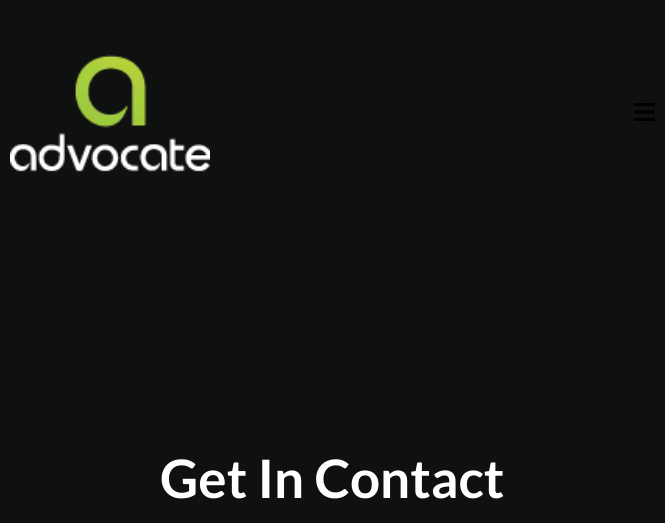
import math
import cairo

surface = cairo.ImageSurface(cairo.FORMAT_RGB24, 665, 523)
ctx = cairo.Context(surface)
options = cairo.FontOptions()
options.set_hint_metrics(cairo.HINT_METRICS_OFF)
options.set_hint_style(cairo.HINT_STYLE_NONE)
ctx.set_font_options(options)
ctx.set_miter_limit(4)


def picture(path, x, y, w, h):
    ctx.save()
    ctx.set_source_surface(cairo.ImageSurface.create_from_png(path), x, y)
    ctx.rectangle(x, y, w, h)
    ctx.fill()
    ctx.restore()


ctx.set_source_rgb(0.059, 0.067, 0.067)
ctx.paint()
picture("img1.png", 10, 54, 200, 118)
picture("img2.png", 634, 103, 21, 18)
ctx.select_font_face("Lato", cairo.FONT_SLANT_NORMAL, cairo.FONT_WEIGHT_BOLD)
ctx.set_font_size(53)
ctx.set_source_rgb(1, 1, 1)
ctx.move_to(160, 498)
ctx.show_text("Get In Contact")
surface.write_to_png("page.png")
